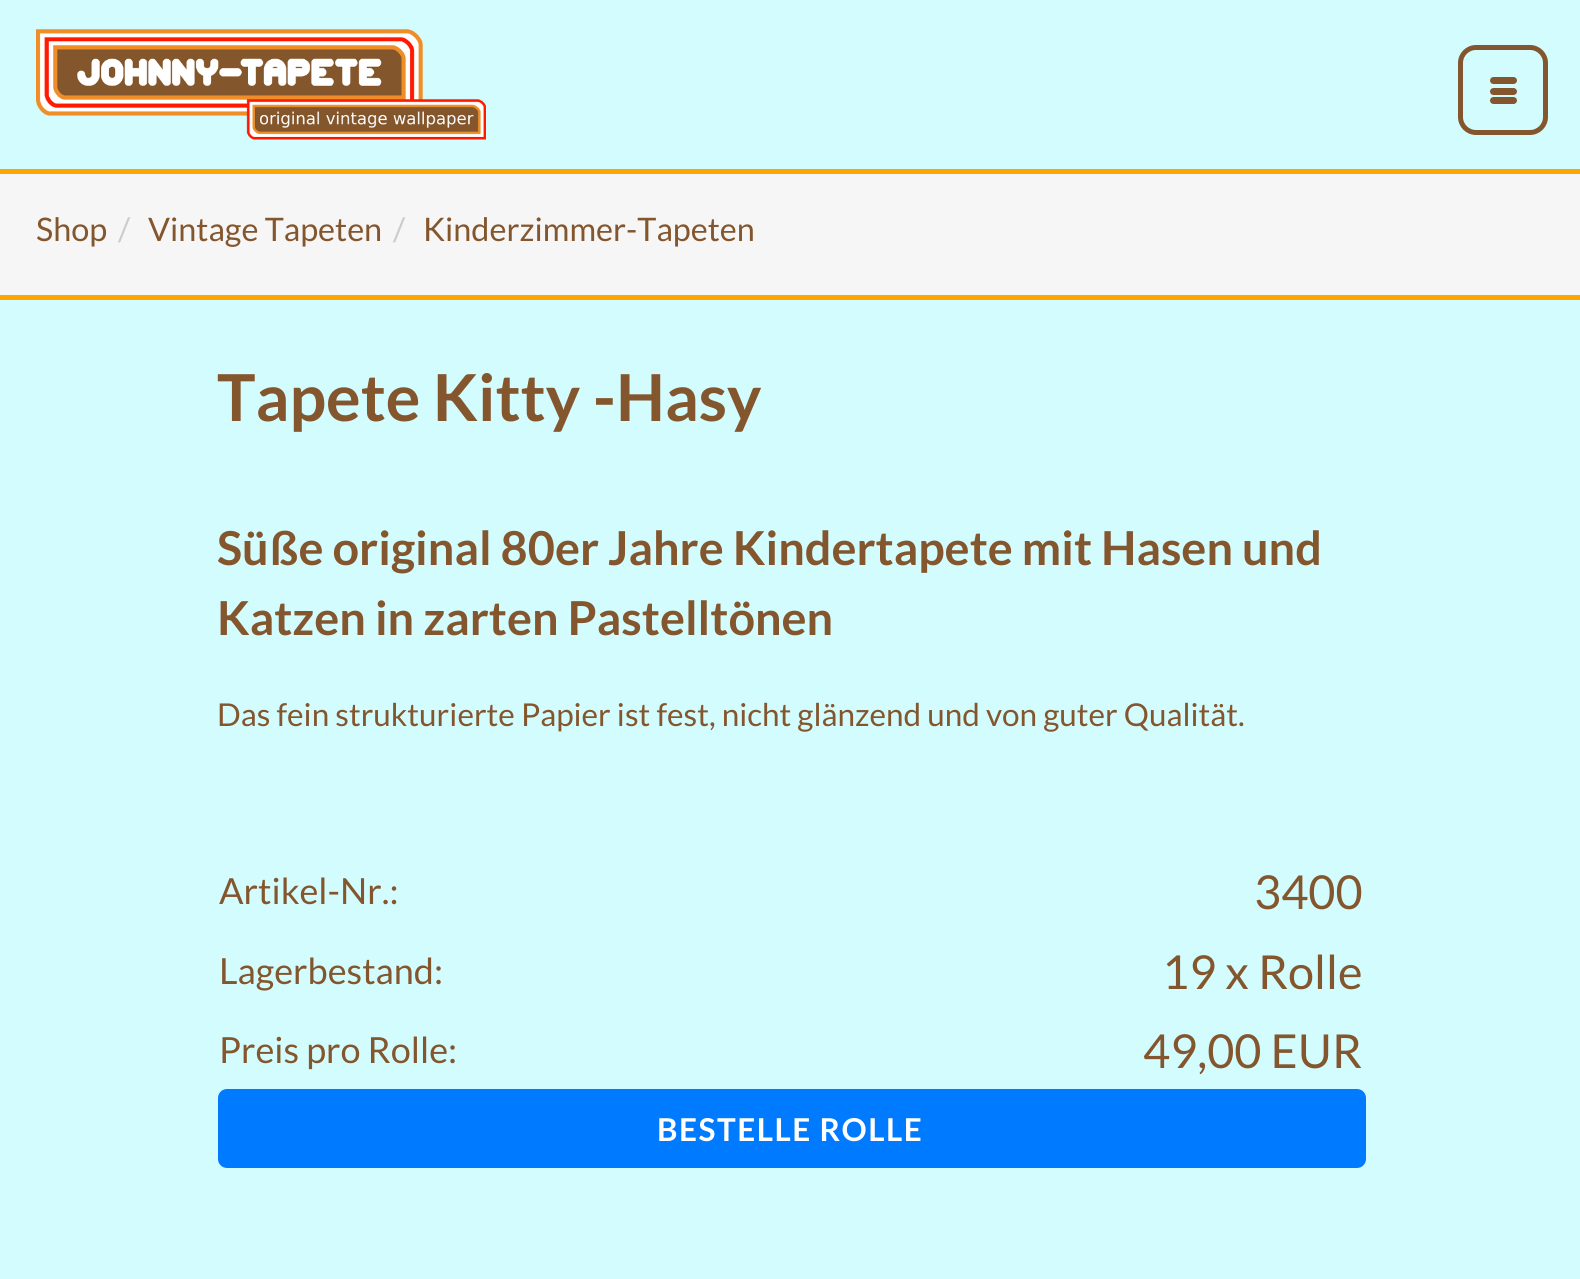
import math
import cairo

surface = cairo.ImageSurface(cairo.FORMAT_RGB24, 1580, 1279)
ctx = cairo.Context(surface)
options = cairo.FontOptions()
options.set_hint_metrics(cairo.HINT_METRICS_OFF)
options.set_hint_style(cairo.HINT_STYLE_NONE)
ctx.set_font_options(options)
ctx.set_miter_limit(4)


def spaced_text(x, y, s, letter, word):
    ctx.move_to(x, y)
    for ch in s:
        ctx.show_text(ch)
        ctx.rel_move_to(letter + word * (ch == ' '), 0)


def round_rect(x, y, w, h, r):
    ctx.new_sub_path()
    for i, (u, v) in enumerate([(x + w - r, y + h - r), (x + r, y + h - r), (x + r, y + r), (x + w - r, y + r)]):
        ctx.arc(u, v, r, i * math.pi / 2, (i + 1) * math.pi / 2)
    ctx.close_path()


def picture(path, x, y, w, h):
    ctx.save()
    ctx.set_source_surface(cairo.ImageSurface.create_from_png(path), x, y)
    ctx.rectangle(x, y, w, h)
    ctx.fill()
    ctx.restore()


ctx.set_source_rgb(0.827, 0.988, 0.996)
ctx.paint()
picture("img1.png", 36, 29, 450, 111)
round_rect(1460.5, 47.5, 85, 85, 15.5)
ctx.set_source_rgb(0.518, 0.337, 0.18)
ctx.set_line_width(5)
ctx.stroke()
round_rect(1490, 77, 27, 7, 3.5)
ctx.fill()
round_rect(1490, 88, 27, 7, 3.5)
ctx.fill()
round_rect(1490, 97, 27, 7, 3.5)
ctx.fill()
ctx.set_source_rgb(0.961, 0.961, 0.961)
ctx.rectangle(0, 174, 1580, 121)
ctx.fill()
ctx.set_source_rgb(1, 0.647, 0)
ctx.rectangle(0, 169, 1580, 5)
ctx.fill()
ctx.rectangle(0, 295, 1580, 5)
ctx.fill()
ctx.select_font_face("Lato")
ctx.set_font_size(32.4)
ctx.set_source_rgb(0.518, 0.337, 0.18)
ctx.move_to(36, 241)
ctx.show_text("Shop")
ctx.set_source_rgb(0.8, 0.8, 0.8)
ctx.move_to(118, 241)
ctx.show_text("/")
ctx.set_source_rgb(0.518, 0.337, 0.18)
ctx.move_to(148, 241)
ctx.show_text("Vintage Tapeten")
ctx.set_source_rgb(0.8, 0.8, 0.8)
ctx.move_to(393, 241)
ctx.show_text("/")
ctx.set_source_rgb(0.518, 0.337, 0.18)
ctx.move_to(423, 241)
ctx.show_text("Kinderzimmer-Tapeten")
ctx.select_font_face("Lato", cairo.FONT_SLANT_NORMAL, cairo.FONT_WEIGHT_BOLD)
ctx.set_font_size(64.75)
ctx.move_to(217, 421)
ctx.show_text("Tapete Kitty -Hasy")
ctx.set_font_size(46.8)
ctx.move_to(217, 565)
ctx.show_text("Süße original 80er Jahre Kindertapete mit Hasen und")
ctx.move_to(217, 635)
ctx.show_text("Katzen in zarten Pastelltönen")
ctx.select_font_face("Lato")
ctx.set_font_size(31.5)
ctx.move_to(217, 726)
ctx.show_text("Das fein strukturierte Papier ist fest, nicht glänzend und von guter Qualität.")
ctx.set_font_size(36)
ctx.move_to(219, 904)
ctx.show_text("Artikel-Nr.:")
ctx.set_font_size(46.8)
ctx.move_to(1254, 909)
ctx.show_text("3400")
ctx.set_font_size(36)
ctx.move_to(219, 984)
ctx.show_text("Lagerbestand:")
ctx.set_font_size(46.8)
ctx.move_to(1162, 989)
ctx.show_text("19 x Rolle")
ctx.set_font_size(36)
ctx.move_to(219, 1063)
ctx.show_text("Preis pro Rolle:")
ctx.set_font_size(46.8)
ctx.move_to(1143, 1068)
ctx.show_text("49,00 EUR")
ctx.set_source_rgb(0, 0.482, 1)
round_rect(219, 1090, 1146, 77, 8)
ctx.fill_preserve()
ctx.set_line_width(2)
ctx.stroke()
ctx.select_font_face("Lato", cairo.FONT_SLANT_NORMAL, cairo.FONT_WEIGHT_BOLD)
ctx.set_font_size(31.5)
ctx.set_source_rgb(1, 1, 1)
spaced_text(657, 1141, "BESTELLE ROLLE", 1.5, 0)
surface.write_to_png("page.png")
